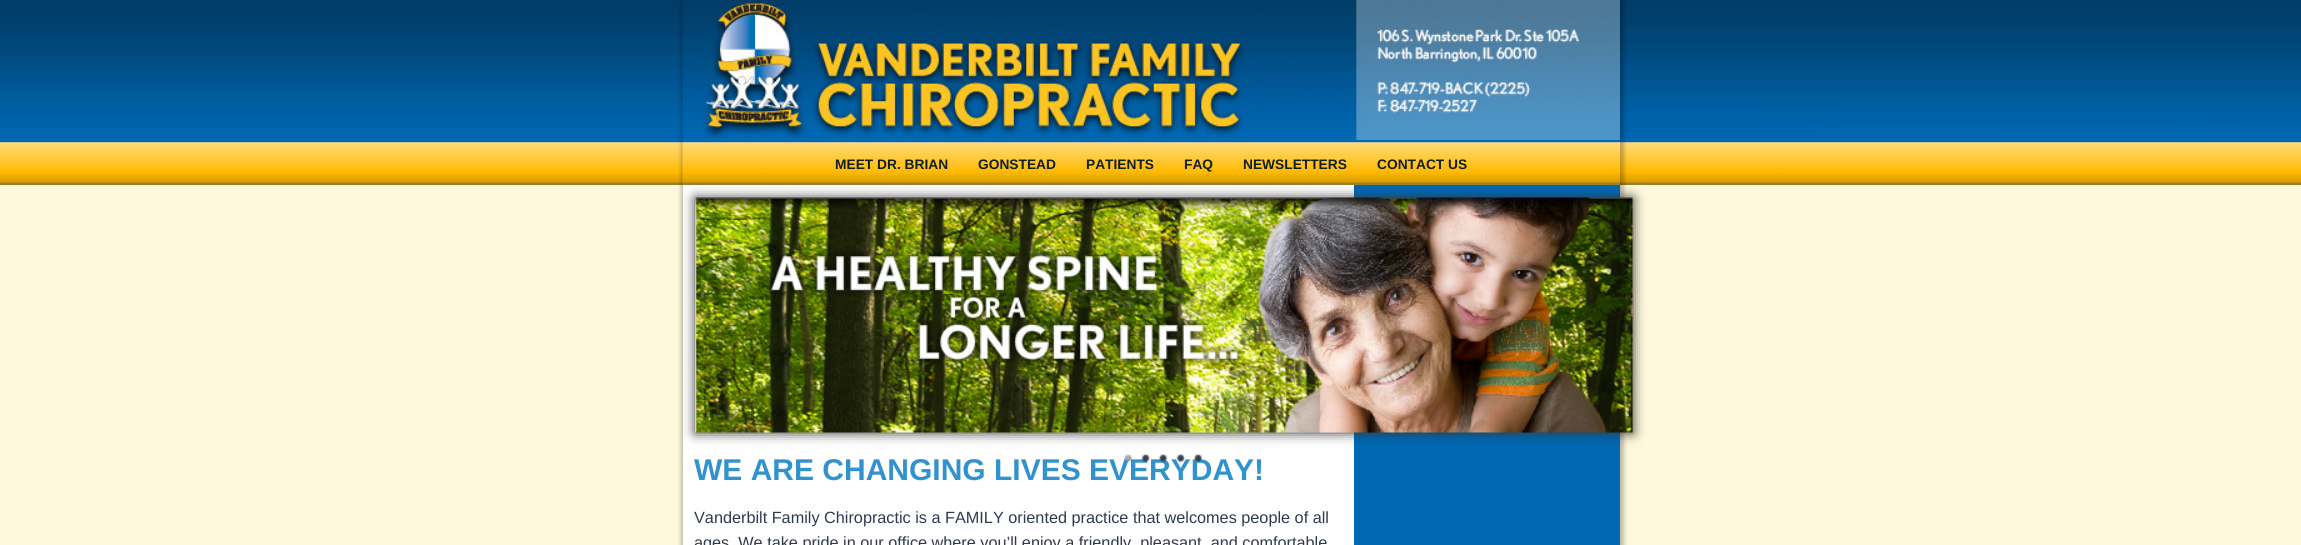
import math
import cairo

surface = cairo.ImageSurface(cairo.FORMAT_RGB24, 2301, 545)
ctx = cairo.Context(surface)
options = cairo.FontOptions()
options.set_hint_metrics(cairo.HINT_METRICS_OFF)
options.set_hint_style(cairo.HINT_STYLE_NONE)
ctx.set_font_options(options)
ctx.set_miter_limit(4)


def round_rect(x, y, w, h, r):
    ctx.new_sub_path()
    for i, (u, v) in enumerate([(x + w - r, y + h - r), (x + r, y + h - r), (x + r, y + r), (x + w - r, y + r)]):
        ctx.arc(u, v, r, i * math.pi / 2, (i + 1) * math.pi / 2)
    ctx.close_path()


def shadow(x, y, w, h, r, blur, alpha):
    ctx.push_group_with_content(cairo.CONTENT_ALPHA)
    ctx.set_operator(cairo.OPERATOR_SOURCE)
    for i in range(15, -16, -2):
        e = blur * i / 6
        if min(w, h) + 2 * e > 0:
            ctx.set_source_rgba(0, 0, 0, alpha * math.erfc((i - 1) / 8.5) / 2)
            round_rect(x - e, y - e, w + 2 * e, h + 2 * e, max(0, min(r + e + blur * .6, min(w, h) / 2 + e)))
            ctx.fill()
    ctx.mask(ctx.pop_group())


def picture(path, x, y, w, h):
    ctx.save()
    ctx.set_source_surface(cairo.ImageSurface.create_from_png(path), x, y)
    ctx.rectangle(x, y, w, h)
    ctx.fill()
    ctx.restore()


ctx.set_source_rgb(0.996, 0.973, 0.863)
ctx.paint()
picture("img1.png", 0, 0, 2301, 143)
picture("img2.png", 0, 142, 2301, 43)
ctx.set_source_rgb(0, 0, 0)
shadow(681, -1, 943, 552, 0, 2, 0.25)
ctx.set_source_rgb(1, 1, 1)
ctx.rectangle(683, 142, 937, 403)
ctx.fill()
picture("img3.png", 682, 0, 938, 143)
ctx.set_source_rgb(0, 0.408, 0.702)
ctx.rectangle(1354, 185, 266, 360)
ctx.fill()
ctx.set_source_rgb(0.2, 0.2, 0.2)
shadow(695, 198, 938, 235, 0, 6, 1)
picture("img4.png", 682, 142, 938, 43)
ctx.select_font_face("Liberation Sans", cairo.FONT_SLANT_NORMAL, cairo.FONT_WEIGHT_BOLD)
ctx.set_font_size(13.75)
ctx.set_source_rgb(0.082, 0.118, 0.118)
ctx.move_to(835, 169)
ctx.show_text("MEET DR. BRIAN")
ctx.move_to(978, 169)
ctx.show_text("GONSTEAD")
ctx.move_to(1086, 169)
ctx.show_text("PATIENTS")
ctx.move_to(1184, 169)
ctx.show_text("FAQ")
ctx.move_to(1243, 169)
ctx.show_text("NEWSLETTERS")
ctx.move_to(1377, 169)
ctx.show_text("CONTACT US")
picture("img5.png", 695, 197, 938, 236)
ctx.set_font_size(30)
ctx.set_source_rgb(0.196, 0.573, 0.804)
ctx.move_to(694, 480)
ctx.show_text("WE ARE CHANGING LIVES EVERYDAY!")
picture("img6.png", 1123, 453, 10, 10)
picture("img7.png", 1141, 453, 10, 10)
picture("img8.png", 1158, 453, 10, 10)
picture("img9.png", 1176, 453, 10, 10)
picture("img10.png", 1193, 453, 10, 10)
ctx.select_font_face("Liberation Sans")
ctx.set_font_size(16.25)
ctx.set_source_rgb(0.188, 0.227, 0.31)
ctx.move_to(694, 523)
ctx.show_text("Vanderbilt Family Chiropractic is a FAMILY oriented practice that welcomes people of all")
ctx.move_to(694, 548)
ctx.show_text("ages. We take pride in our office where you’ll enjoy a friendly, pleasant, and comfortable")
surface.write_to_png("page.png")
